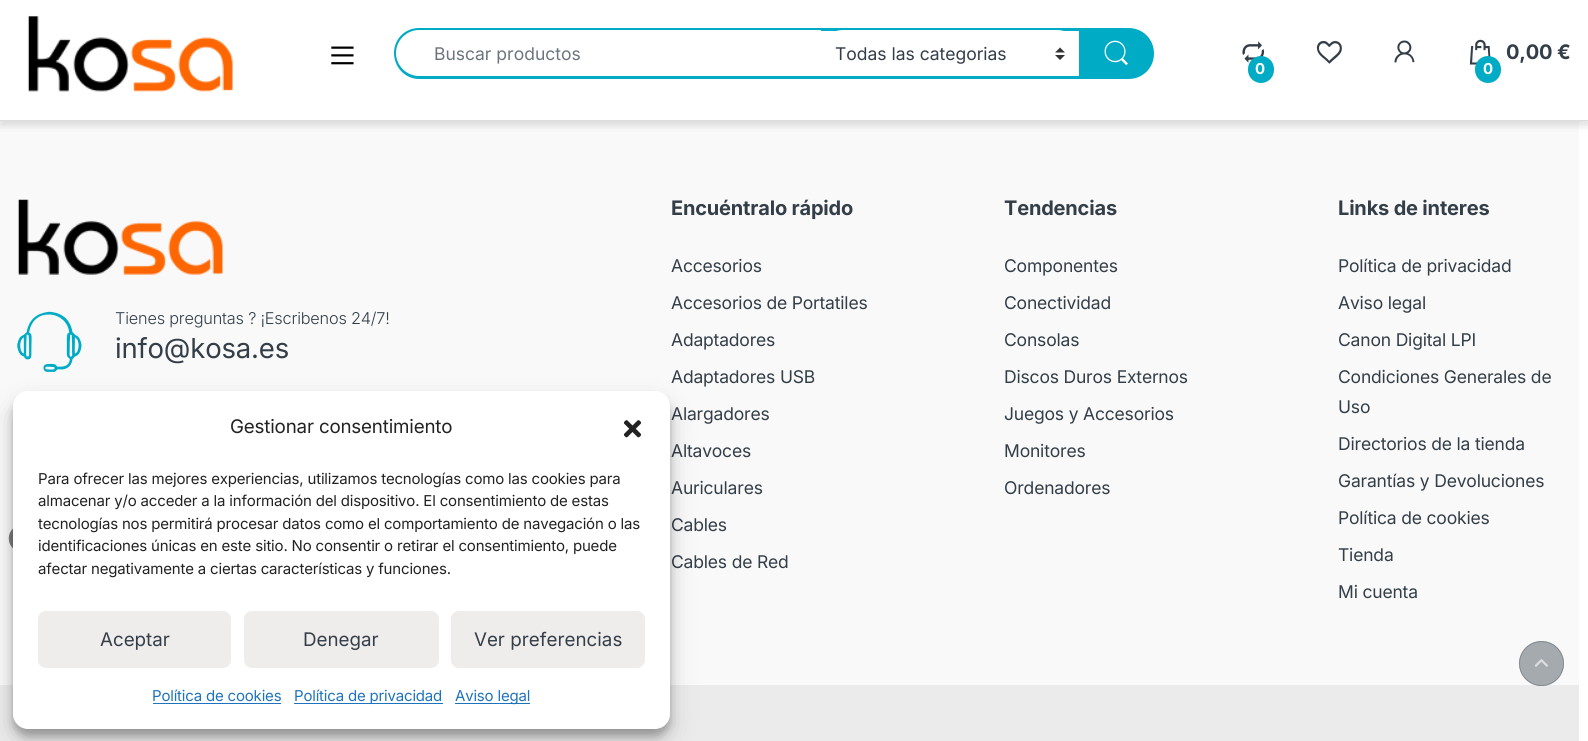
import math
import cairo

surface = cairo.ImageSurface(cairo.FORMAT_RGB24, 1588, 741)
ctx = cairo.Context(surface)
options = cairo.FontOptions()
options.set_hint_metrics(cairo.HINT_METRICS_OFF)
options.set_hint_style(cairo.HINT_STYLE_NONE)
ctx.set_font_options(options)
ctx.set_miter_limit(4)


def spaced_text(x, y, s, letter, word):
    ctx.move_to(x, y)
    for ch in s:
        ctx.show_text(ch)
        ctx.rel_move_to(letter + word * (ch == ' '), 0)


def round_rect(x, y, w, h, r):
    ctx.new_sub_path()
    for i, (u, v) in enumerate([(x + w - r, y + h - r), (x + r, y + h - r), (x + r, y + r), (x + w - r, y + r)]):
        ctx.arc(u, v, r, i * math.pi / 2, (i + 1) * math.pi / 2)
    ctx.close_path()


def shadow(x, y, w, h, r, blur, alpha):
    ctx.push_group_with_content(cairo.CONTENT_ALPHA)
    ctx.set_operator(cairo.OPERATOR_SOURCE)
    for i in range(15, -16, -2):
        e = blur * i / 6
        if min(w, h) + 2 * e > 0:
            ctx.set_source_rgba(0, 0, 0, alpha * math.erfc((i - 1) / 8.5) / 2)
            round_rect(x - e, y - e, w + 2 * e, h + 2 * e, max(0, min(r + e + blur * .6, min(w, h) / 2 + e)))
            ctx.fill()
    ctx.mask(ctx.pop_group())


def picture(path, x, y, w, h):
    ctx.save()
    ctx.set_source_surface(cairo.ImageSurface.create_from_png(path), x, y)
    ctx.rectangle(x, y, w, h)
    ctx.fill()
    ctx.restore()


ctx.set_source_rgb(1, 1, 1)
ctx.paint()
ctx.set_source_rgb(0.973, 0.973, 0.973)
ctx.rectangle(0, 121, 1579, 564)
ctx.fill()
ctx.set_source_rgb(0, 0, 0)
shadow(0, 5, 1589, 121, 0, 3.5, 0.12)
ctx.set_source_rgb(1, 1, 1)
ctx.rectangle(0, 0, 1588, 120)
ctx.fill()
ctx.set_source_rgb(0.867, 0.867, 0.867)
ctx.rectangle(0, 120, 1588, 1)
ctx.fill()
picture("img1.png", 27, 15, 206, 77)
picture("img2.png", 331, 46, 23, 19)
ctx.set_source_rgb(0, 0.671, 0.773)
ctx.rectangle(820, 28, 260, 3)
ctx.fill()
ctx.set_source_rgb(1, 1, 1)
round_rect(820, 30, 260, 46, 23)
ctx.fill()
ctx.new_path()
ctx.move_to(419, 30)
ctx.line_to(821, 30)
ctx.line_to(821, 76)
ctx.line_to(419, 76)
ctx.curve_to(406.5, 76, 396, 65.5, 396, 53)
ctx.curve_to(396, 40.5, 406.5, 30, 419, 30)
ctx.close_path()
ctx.fill()
ctx.set_source_rgb(0, 0.671, 0.773)
ctx.rectangle(820, 76, 260, 3)
ctx.fill()
ctx.set_fill_rule(cairo.FILL_RULE_EVEN_ODD)
ctx.new_path()
ctx.move_to(419, 28)
ctx.line_to(821, 28)
ctx.line_to(821, 79)
ctx.line_to(419, 79)
ctx.curve_to(405, 79, 394, 67, 394, 53)
ctx.curve_to(394, 39, 405, 28, 419, 28)
ctx.close_path()
ctx.move_to(419, 30)
ctx.line_to(821, 30)
ctx.line_to(821, 76)
ctx.line_to(419, 76)
ctx.curve_to(407, 76, 396, 66, 396, 53)
ctx.curve_to(396, 40, 407, 30, 419, 30)
ctx.close_path()
ctx.fill()
ctx.select_font_face("Inter")
ctx.set_font_size(17.5)
ctx.set_source_rgb(0.424, 0.459, 0.49)
ctx.move_to(434, 60)
ctx.show_text("Buscar productos")
picture("img3.png", 1055, 47, 10, 13)
ctx.set_source_rgb(0.2, 0.243, 0.282)
ctx.move_to(835, 60)
ctx.show_text("Todas las categorias")
ctx.set_source_rgb(0, 0.671, 0.773)
ctx.new_path()
ctx.move_to(1080.5, 29.5)
ctx.line_to(1128.5, 29.5)
ctx.curve_to(1142, 29.5, 1152.5, 40, 1152.5, 53.5)
ctx.curve_to(1152.5, 67, 1142, 77.5, 1128.5, 77.5)
ctx.line_to(1080.5, 77.5)
ctx.close_path()
ctx.fill_preserve()
ctx.set_line_width(3)
ctx.stroke()
picture("img4.png", 1104, 40, 24, 26)
picture("img5.png", 1242, 41, 23, 22)
round_rect(1248, 56, 26, 27, 13)
ctx.fill()
ctx.select_font_face("Inter", cairo.FONT_SLANT_NORMAL, cairo.FONT_WEIGHT_BOLD)
ctx.set_font_size(15)
ctx.set_source_rgb(1, 1, 1)
spaced_text(1255, 74, "0", -0.18, 0)
picture("img6.png", 1316, 41, 26, 23)
picture("img7.png", 1394, 40, 21, 23)
picture("img8.png", 1469, 39, 22, 26)
ctx.set_font_size(20)
ctx.set_source_rgb(0.2, 0.243, 0.282)
spaced_text(1506, 59, "0,00 €", -0.18, 0)
ctx.set_source_rgb(0, 0.671, 0.773)
round_rect(1475, 56, 26, 27, 13)
ctx.fill()
ctx.set_font_size(15)
ctx.set_source_rgb(1, 1, 1)
spaced_text(1483, 74, "0", -0.18, 0)
picture("img9.png", 17, 199, 206, 76)
picture("img10.png", 17, 311, 65, 61)
ctx.select_font_face("Inter Light")
ctx.set_font_size(16.25)
ctx.set_source_rgb(0.2, 0.243, 0.282)
spaced_text(115, 324, "Tienes preguntas ? ¡Escribenos 24/7!", -0.18, 0)
ctx.select_font_face("Inter")
ctx.set_font_size(27.5)
spaced_text(115, 358, "info@kosa.es", -0.18, 0)
picture("img11.png", 8, 528, 5, 21)
ctx.select_font_face("Inter", cairo.FONT_SLANT_NORMAL, cairo.FONT_WEIGHT_BOLD)
ctx.set_font_size(20)
spaced_text(671, 215, "Encuéntralo rápido", -0.18, 0)
ctx.select_font_face("Inter")
ctx.set_font_size(17.5)
spaced_text(671, 272, "Accesorios", -0.18, 0)
spaced_text(671, 309, "Accesorios de Portatiles", -0.18, 0)
spaced_text(671, 346, "Adaptadores", -0.18, 0)
spaced_text(671, 383, "Adaptadores USB", -0.18, 0)
spaced_text(671, 420, "Alargadores", -0.18, 0)
spaced_text(671, 457, "Altavoces", -0.18, 0)
spaced_text(671, 494, "Auriculares", -0.18, 0)
spaced_text(671, 531, "Cables", -0.18, 0)
spaced_text(671, 568, "Cables de Red", -0.18, 0)
ctx.select_font_face("Inter", cairo.FONT_SLANT_NORMAL, cairo.FONT_WEIGHT_BOLD)
ctx.set_font_size(20)
spaced_text(1004, 215, "Tendencias", -0.18, 0)
ctx.select_font_face("Inter")
ctx.set_font_size(17.5)
spaced_text(1004, 272, "Componentes", -0.18, 0)
spaced_text(1004, 309, "Conectividad", -0.18, 0)
spaced_text(1004, 346, "Consolas", -0.18, 0)
spaced_text(1004, 383, "Discos Duros Externos", -0.18, 0)
spaced_text(1004, 420, "Juegos y Accesorios", -0.18, 0)
spaced_text(1004, 457, "Monitores", -0.18, 0)
spaced_text(1004, 494, "Ordenadores", -0.18, 0)
ctx.select_font_face("Inter", cairo.FONT_SLANT_NORMAL, cairo.FONT_WEIGHT_BOLD)
ctx.set_font_size(20)
spaced_text(1338, 215, "Links de interes", -0.18, 0)
ctx.select_font_face("Inter")
ctx.set_font_size(17.5)
spaced_text(1338, 272, "Política de privacidad", -0.18, 0)
spaced_text(1338, 309, "Aviso legal", -0.18, 0)
spaced_text(1338, 346, "Canon Digital LPI", -0.18, 0)
spaced_text(1338, 383, "Condiciones Generales de", -0.18, 0)
spaced_text(1338, 413, "Uso", -0.18, 0)
spaced_text(1338, 450, "Directorios de la tienda", -0.18, 0)
spaced_text(1338, 487, "Garantías y Devoluciones", -0.18, 0)
spaced_text(1338, 524, "Política de cookies", -0.18, 0)
spaced_text(1338, 561, "Tienda", -0.18, 0)
spaced_text(1338, 598, "Mi cuenta", -0.18, 0)
ctx.set_source_rgb(0.918, 0.918, 0.918)
ctx.rectangle(0, 685, 1579, 56)
ctx.fill()
ctx.set_source_rgb(0, 0, 0)
shadow(13, 399, 657, 337, 15, 4, 0.23)
shadow(13, 404, 657, 337, 15, 12.5, 0.19)
ctx.set_source_rgb(1, 1, 1)
round_rect(13, 391, 657, 338, 15)
ctx.fill()
ctx.set_font_size(18.75)
ctx.set_source_rgb(0.133, 0.133, 0.133)
spaced_text(230, 433, "Gestionar consentimiento", -0.18, 0)
picture("img12.png", 623, 420, 19, 18)
ctx.set_font_size(15)
spaced_text(38, 484, "Para ofrecer las mejores experiencias, utilizamos tecnologías como las cookies para", -0.18, 0)
spaced_text(38, 506, "almacenar y/o acceder a la información del dispositivo. El consentimiento de estas", -0.18, 0)
spaced_text(38, 529, "tecnologías nos permitirá procesar datos como el comportamiento de navegación o las", -0.18, 0)
spaced_text(38, 551, "identificaciones únicas en este sitio. No consentir o retirar el consentimiento, puede", -0.18, 0)
spaced_text(38, 574, "afectar negativamente a ciertas características y funciones.", -0.18, 0)
ctx.set_source_rgb(0.937, 0.925, 0.925)
round_rect(38.5, 611.5, 192, 56, 7.5)
ctx.fill_preserve()
ctx.set_line_width(1)
ctx.stroke()
ctx.set_font_size(18.75)
ctx.set_source_rgb(0.2, 0.243, 0.282)
ctx.move_to(100, 646)
ctx.show_text("Aceptar")
ctx.set_source_rgb(0.937, 0.925, 0.925)
round_rect(244.5, 611.5, 194, 56, 7.5)
ctx.fill_preserve()
ctx.stroke()
ctx.set_source_rgb(0.2, 0.243, 0.282)
ctx.move_to(303, 646)
ctx.show_text("Denegar")
ctx.set_source_rgb(0.937, 0.925, 0.925)
round_rect(451.5, 611.5, 193, 56, 7.5)
ctx.fill_preserve()
ctx.stroke()
ctx.set_source_rgb(0.2, 0.243, 0.282)
ctx.move_to(474, 646)
ctx.show_text("Ver preferencias")
ctx.set_font_size(15)
ctx.set_source_rgb(0.118, 0.451, 0.745)
spaced_text(152, 701, "Política de cookies", -0.18, 0)
ctx.rectangle(153, 703, 128, 1)
ctx.fill()
ctx.rectangle(294, 703, 149, 1)
ctx.fill()
spaced_text(294, 701, "Política de privacidad", -0.18, 0)
ctx.rectangle(455, 703, 75, 1)
ctx.fill()
spaced_text(455, 701, "Aviso legal", -0.18, 0)
ctx.set_source_rgba(0.424, 0.459, 0.49, 0.6)
ctx.new_path()
ctx.arc(1541.5, 663.5, 22.5, 0, 2 * math.pi)
ctx.fill()
ctx.arc(1541.5, 663.5, 22, 0, 2 * math.pi)
ctx.stroke()
picture("img13.png", 1534, 659, 14, 8)
surface.write_to_png("page.png")
